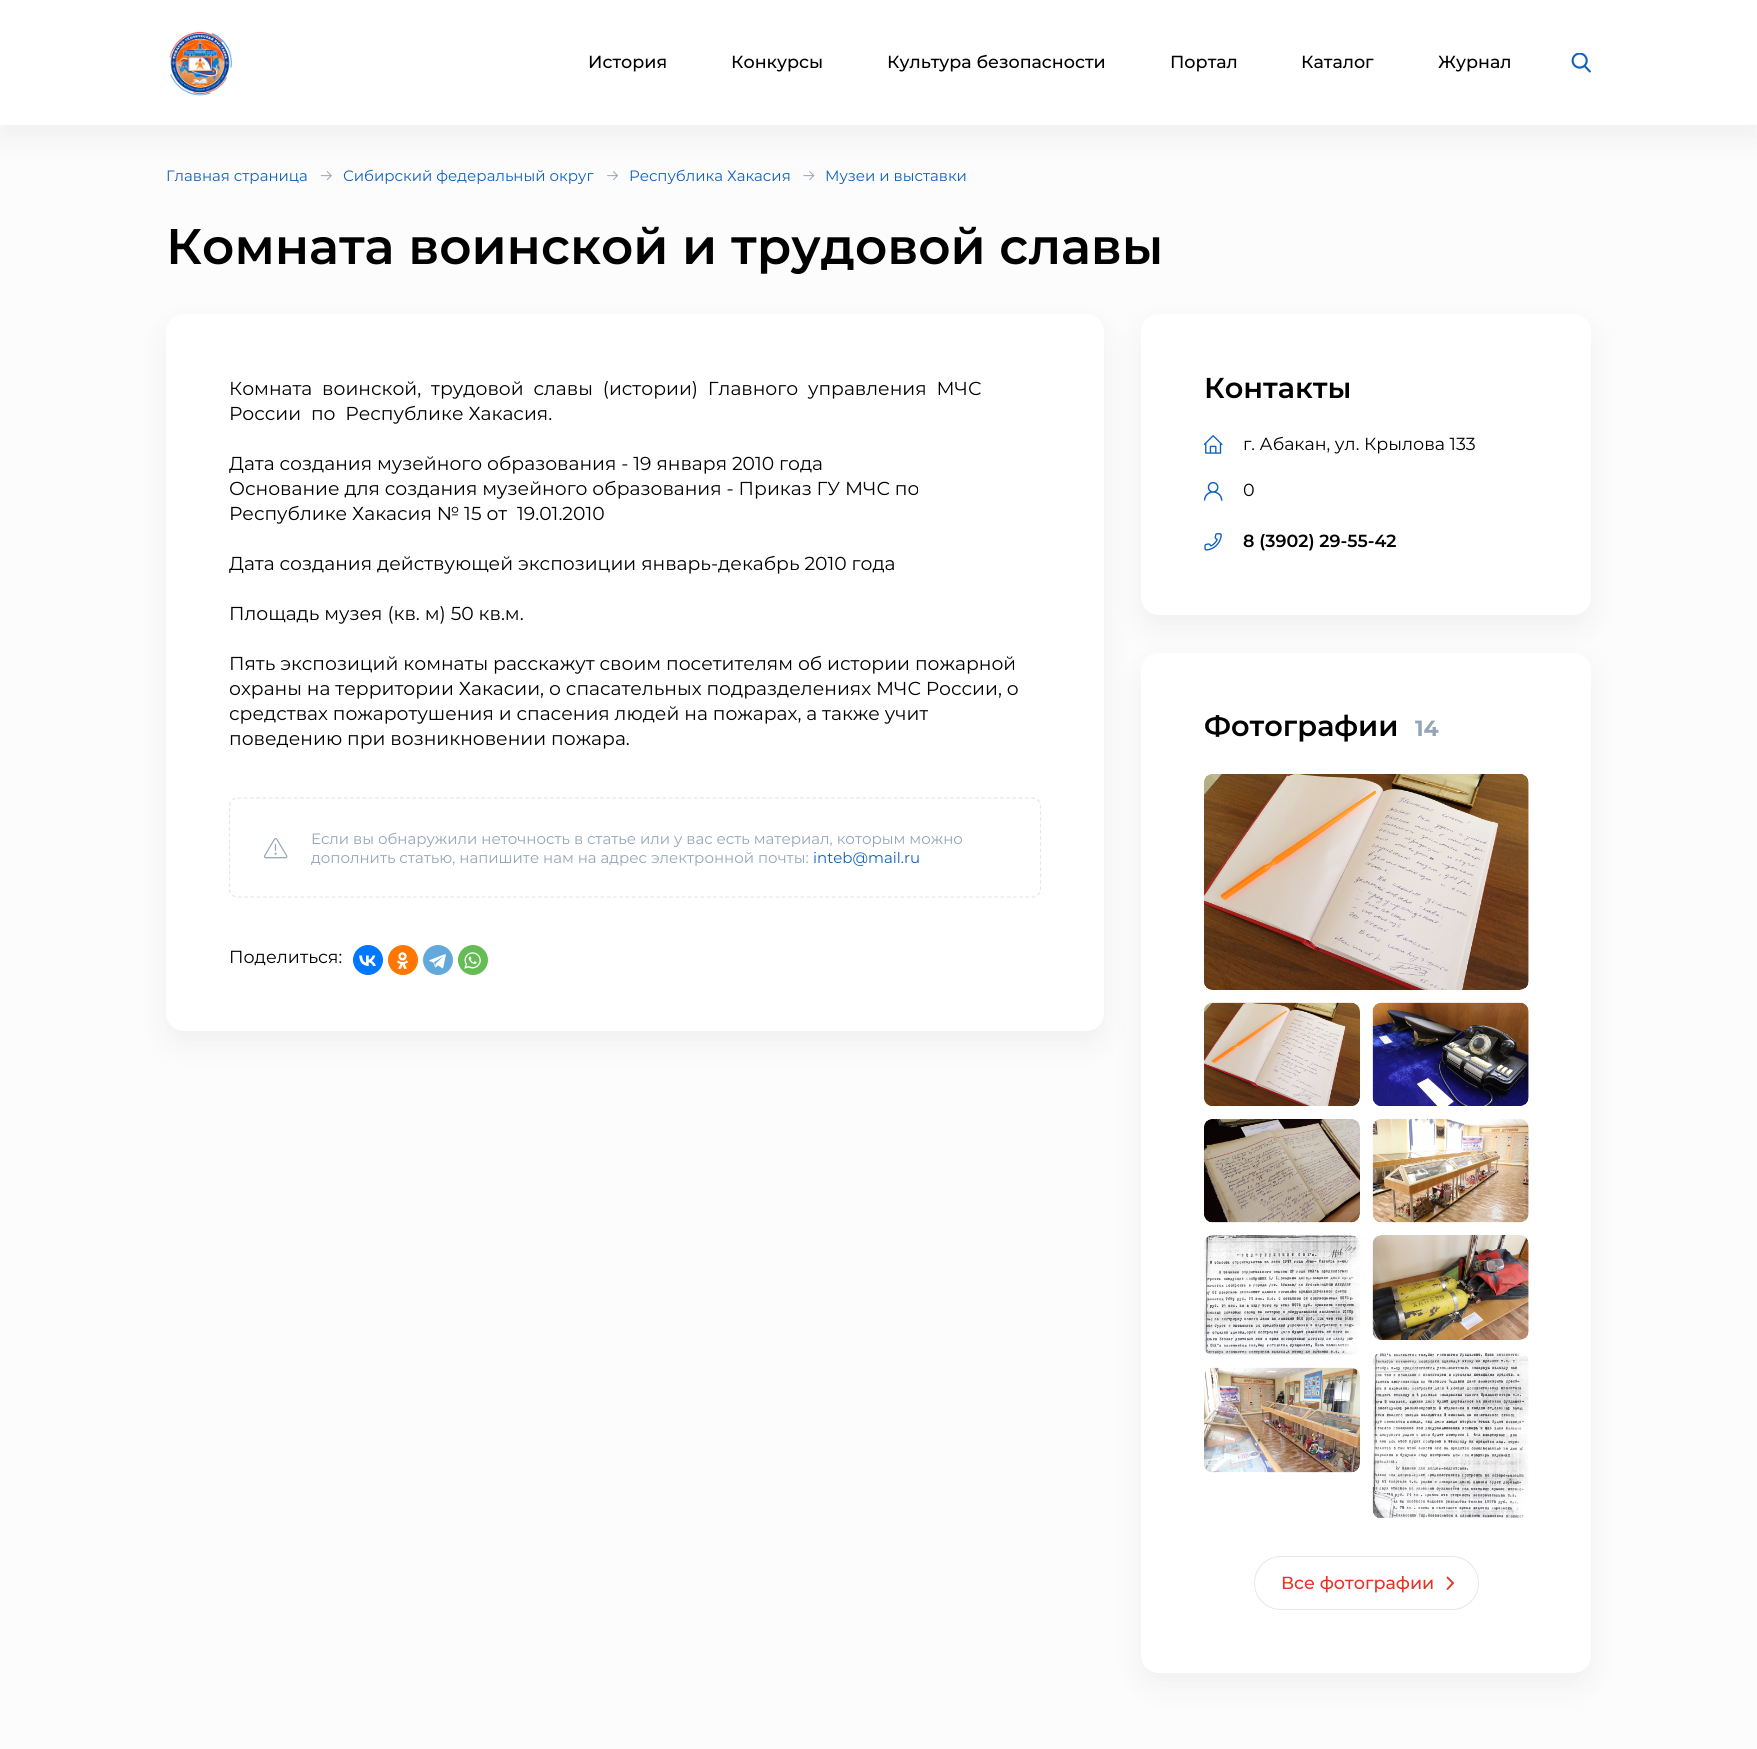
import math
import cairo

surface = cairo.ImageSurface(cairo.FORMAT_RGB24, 1757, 1749)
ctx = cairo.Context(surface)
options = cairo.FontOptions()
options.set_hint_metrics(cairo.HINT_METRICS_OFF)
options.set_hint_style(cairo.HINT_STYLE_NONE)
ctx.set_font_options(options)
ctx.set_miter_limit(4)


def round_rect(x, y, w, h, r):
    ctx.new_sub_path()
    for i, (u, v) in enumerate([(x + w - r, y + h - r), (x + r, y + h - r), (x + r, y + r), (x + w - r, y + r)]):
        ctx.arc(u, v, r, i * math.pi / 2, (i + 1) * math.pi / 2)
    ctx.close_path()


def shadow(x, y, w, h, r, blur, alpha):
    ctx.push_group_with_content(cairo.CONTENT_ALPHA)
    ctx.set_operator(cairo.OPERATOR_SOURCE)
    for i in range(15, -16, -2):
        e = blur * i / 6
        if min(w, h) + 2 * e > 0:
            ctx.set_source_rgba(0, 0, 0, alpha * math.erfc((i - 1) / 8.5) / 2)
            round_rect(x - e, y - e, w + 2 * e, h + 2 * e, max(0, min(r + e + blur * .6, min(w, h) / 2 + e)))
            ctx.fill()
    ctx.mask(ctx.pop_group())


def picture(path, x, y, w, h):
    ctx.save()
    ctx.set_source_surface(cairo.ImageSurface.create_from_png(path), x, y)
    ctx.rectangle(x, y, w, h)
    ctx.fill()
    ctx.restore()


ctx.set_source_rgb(0.988, 0.988, 0.988)
ctx.paint()
picture("img3.png", 320, 171, 12, 10)
picture("img4.png", 607, 171, 11, 10)
picture("img5.png", 803, 171, 12, 10)
ctx.set_source_rgb(0, 0, 0)
shadow(0, 13, 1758, 125, 0, 15.5, 0.05)
ctx.set_source_rgb(1, 1, 1)
ctx.rectangle(0, 0, 1757, 125)
ctx.fill()
picture("img1.png", 169, 31, 63, 65)
ctx.select_font_face("Montserrat Medium")
ctx.set_font_size(17.5)
ctx.set_source_rgb(0, 0, 0)
ctx.move_to(588, 68)
ctx.show_text("История")
ctx.move_to(731, 68)
ctx.show_text("Конкурсы")
ctx.move_to(887, 68)
ctx.show_text("Культура безопасности")
ctx.move_to(1170, 68)
ctx.show_text("Портал")
ctx.move_to(1301, 68)
ctx.show_text("Каталог")
ctx.move_to(1438, 68)
ctx.show_text("Журнал")
picture("img2.png", 1571, 53, 20, 20)
ctx.select_font_face("Montserrat")
ctx.set_font_size(15)
ctx.set_source_rgb(0.063, 0.38, 0.741)
ctx.move_to(166, 181)
ctx.show_text("Главная страница")
ctx.move_to(343, 181)
ctx.show_text("Сибирский федеральный округ")
ctx.move_to(629, 181)
ctx.show_text("Республика Хакасия")
ctx.move_to(825, 181)
ctx.show_text("Музеи и выставки")
ctx.select_font_face("Montserrat SemiBold")
ctx.set_font_size(50)
ctx.set_source_rgb(0, 0, 0)
ctx.move_to(166, 264)
ctx.show_text("Комната воинской и трудовой славы")
ctx.set_source_rgb(0, 0, 0)
shadow(166, 326, 938, 718, 18, 15.5, 0.05)
ctx.set_source_rgb(1, 1, 1)
round_rect(166, 314, 938, 717, 18)
ctx.fill()
ctx.select_font_face("Montserrat")
ctx.set_font_size(18.75)
ctx.set_source_rgb(0, 0, 0)
ctx.move_to(229, 395)
ctx.show_text("Комната  воинской,  трудовой  славы  (истории)  Главного  управления  МЧС")
ctx.move_to(229, 420)
ctx.show_text("России  по  Республике Хакасия.")
ctx.move_to(229, 470)
ctx.show_text("Дата создания музейного образования - 19 января 2010 года")
ctx.move_to(229, 495)
ctx.show_text("Основание для создания музейного образования - Приказ ГУ МЧС по")
ctx.move_to(229, 520)
ctx.show_text("Республике Хакасия № 15 от  19.01.2010")
ctx.move_to(229, 570)
ctx.show_text("Дата создания действующей экспозиции январь-декабрь 2010 года")
ctx.move_to(229, 620)
ctx.show_text("Площадь музея (кв. м) 50 кв.м.")
ctx.move_to(229, 670)
ctx.show_text("Пять экспозиций комнаты расскажут своим посетителям об истории пожарной")
ctx.move_to(229, 695)
ctx.show_text("охраны на территории Хакасии, о спасательных подразделениях МЧС России, о")
ctx.move_to(229, 720)
ctx.show_text("средствах пожаротушения и спасения людей на пожарах, а также учит")
ctx.move_to(229, 745)
ctx.show_text("поведению при возникновении пожара.")
ctx.new_path()
ctx.move_to(237.5, 798)
ctx.line_to(1032.5, 798)
ctx.curve_to(1037, 798, 1040.5, 802, 1040.5, 806)
ctx.line_to(1040.5, 889)
ctx.curve_to(1040.5, 893, 1037, 897, 1032.5, 897)
ctx.line_to(237.5, 897)
ctx.curve_to(233, 897, 229.5, 893, 229.5, 889)
ctx.line_to(229.5, 806)
ctx.curve_to(229.5, 802, 233, 798, 237.5, 798)
ctx.close_path()
ctx.set_source_rgb(0.906, 0.906, 0.906)
ctx.set_line_width(1.2)
ctx.set_dash([3.75, 2.5])
ctx.stroke()
picture("img6.png", 264, 838, 24, 21)
ctx.set_font_size(15)
ctx.set_source_rgb(0.584, 0.647, 0.718)
ctx.move_to(311, 844)
ctx.show_text("Если вы обнаружили неточность в статье или у вас есть материал, которым можно")
ctx.move_to(311, 863)
ctx.show_text("дополнить статью, напишите нам на адрес электронной почты:")
ctx.set_source_rgb(0.063, 0.38, 0.741)
ctx.move_to(813, 863)
ctx.show_text("inteb@mail.ru")
ctx.set_font_size(17.5)
ctx.set_source_rgb(0, 0, 0)
ctx.move_to(229, 963)
ctx.show_text("Поделиться:")
ctx.set_source_rgb(0, 0.467, 1)
ctx.new_path()
ctx.arc(368, 960, 15, 0, 2 * math.pi)
ctx.fill()
picture("img7.png", 359, 955, 17, 11)
ctx.set_source_rgb(1, 0.467, 0)
ctx.arc(403, 960, 15, 0, 2 * math.pi)
ctx.fill()
picture("img8.png", 397, 952, 12, 17)
ctx.set_source_rgb(0.392, 0.663, 0.863)
ctx.arc(438, 960, 15, 0, 2 * math.pi)
ctx.fill()
picture("img9.png", 429, 954, 17, 15)
ctx.set_source_rgb(0.396, 0.737, 0.329)
ctx.arc(473, 960, 15, 0, 2 * math.pi)
ctx.fill()
picture("img10.png", 464, 952, 17, 17)
ctx.set_source_rgb(0, 0, 0)
shadow(1141, 326, 450, 302, 18, 15.5, 0.05)
ctx.set_source_rgb(1, 1, 1)
round_rect(1141, 314, 450, 301, 18)
ctx.fill()
ctx.select_font_face("Montserrat SemiBold")
ctx.set_font_size(28.75)
ctx.set_source_rgb(0, 0, 0)
ctx.move_to(1204, 398)
ctx.show_text("Контакты")
picture("img11.png", 1204, 435, 19, 19)
ctx.select_font_face("Montserrat")
ctx.set_font_size(17.5)
ctx.move_to(1243, 450)
ctx.show_text("г. Абакан, ул. Крылова 133")
picture("img12.png", 1204, 481, 19, 20)
ctx.move_to(1243, 496)
ctx.show_text("0")
picture("img13.png", 1204, 533, 18, 18)
ctx.select_font_face("Montserrat SemiBold")
ctx.move_to(1243, 547)
ctx.show_text("8 (3902) 29-55-42")
ctx.set_source_rgb(0, 0, 0)
shadow(1141, 665, 450, 1020, 18, 15.5, 0.05)
ctx.set_source_rgb(1, 1, 1)
round_rect(1141, 653, 450, 1020, 18)
ctx.fill()
ctx.set_font_size(28.75)
ctx.set_source_rgb(0, 0, 0)
ctx.move_to(1204, 736)
ctx.show_text("Фотографии")
ctx.select_font_face("Montserrat", cairo.FONT_SLANT_NORMAL, cairo.FONT_WEIGHT_BOLD)
ctx.set_font_size(22)
ctx.set_source_rgb(0.584, 0.647, 0.718)
ctx.move_to(1415, 736)
ctx.show_text("14")
picture("img14.png", 1204, 774, 325, 216)
picture("img15.png", 1204, 1002, 156, 104)
picture("img16.png", 1372, 1002, 157, 104)
picture("img17.png", 1204, 1119, 156, 104)
picture("img18.png", 1372, 1119, 157, 104)
picture("img19.png", 1204, 1235, 156, 120)
picture("img20.png", 1372, 1235, 157, 105)
picture("img21.png", 1204, 1367, 156, 106)
picture("img22.png", 1372, 1352, 157, 166)
round_rect(1254.5, 1556.5, 224, 53, 26.5)
ctx.set_source_rgb(0.906, 0.906, 0.906)
ctx.set_line_width(1)
ctx.set_dash([])
ctx.stroke()
ctx.select_font_face("Montserrat Medium")
ctx.set_font_size(17.5)
ctx.set_source_rgb(0.914, 0.196, 0.149)
ctx.move_to(1281, 1589)
ctx.show_text("Все фотографии")
ctx.new_path()
ctx.move_to(1447.5, 1577.5)
ctx.line_to(1453, 1583)
ctx.line_to(1447.5, 1589)
ctx.set_line_width(1.9)
ctx.set_line_cap(cairo.LINE_CAP_ROUND)
ctx.stroke()
surface.write_to_png("page.png")
